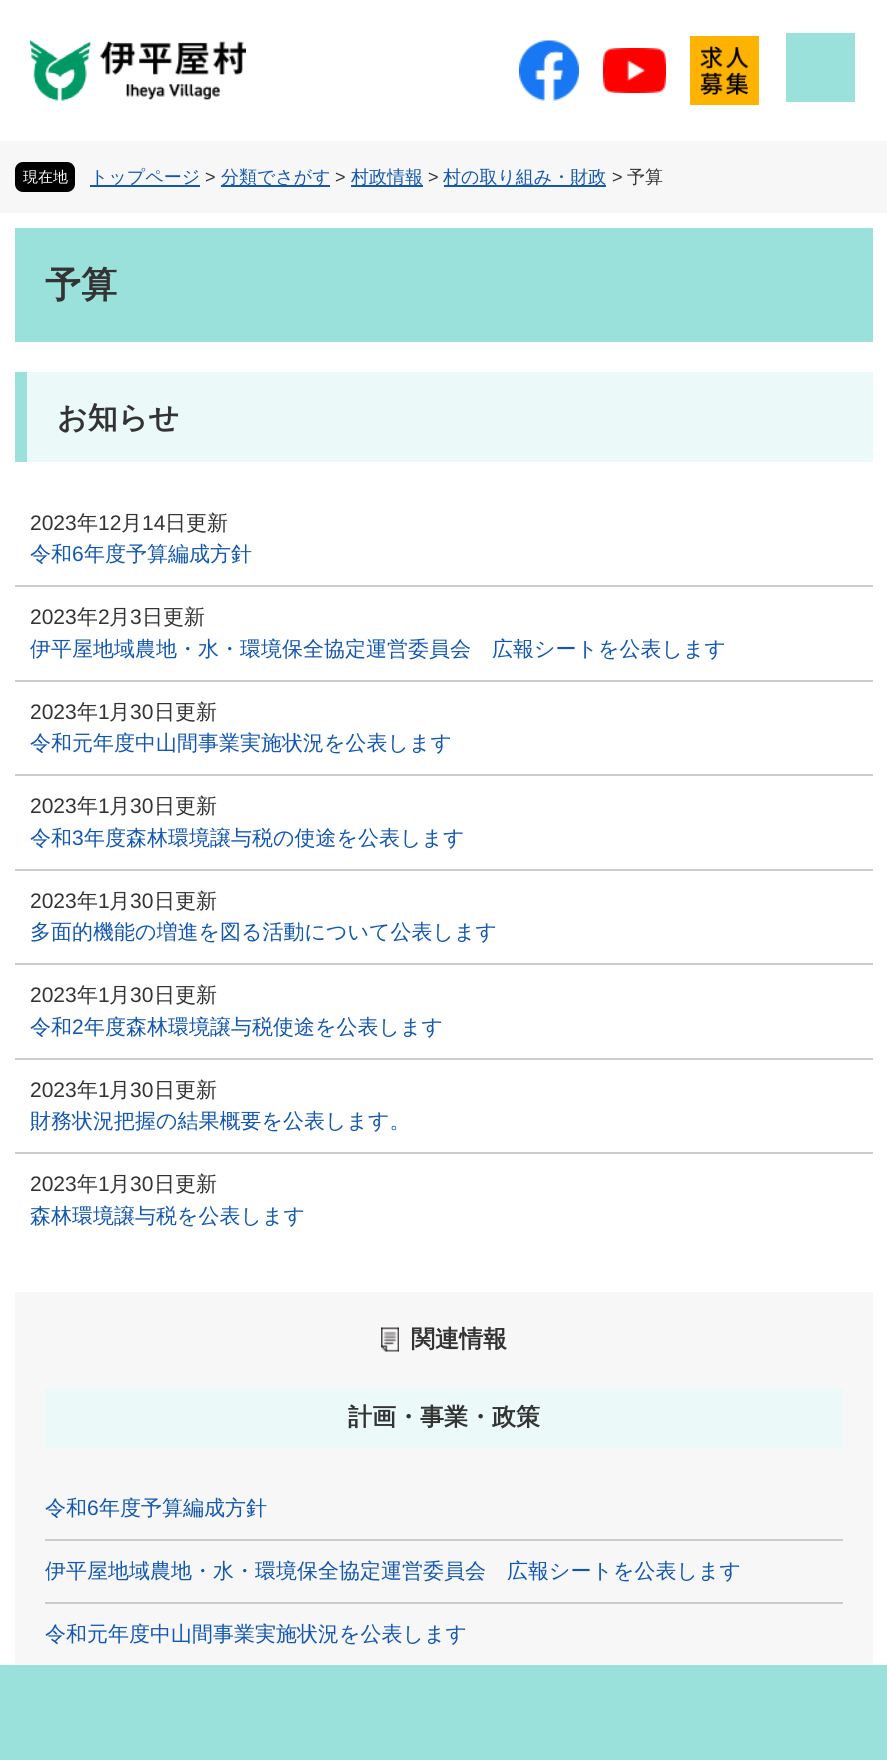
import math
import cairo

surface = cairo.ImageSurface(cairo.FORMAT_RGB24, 887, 1760)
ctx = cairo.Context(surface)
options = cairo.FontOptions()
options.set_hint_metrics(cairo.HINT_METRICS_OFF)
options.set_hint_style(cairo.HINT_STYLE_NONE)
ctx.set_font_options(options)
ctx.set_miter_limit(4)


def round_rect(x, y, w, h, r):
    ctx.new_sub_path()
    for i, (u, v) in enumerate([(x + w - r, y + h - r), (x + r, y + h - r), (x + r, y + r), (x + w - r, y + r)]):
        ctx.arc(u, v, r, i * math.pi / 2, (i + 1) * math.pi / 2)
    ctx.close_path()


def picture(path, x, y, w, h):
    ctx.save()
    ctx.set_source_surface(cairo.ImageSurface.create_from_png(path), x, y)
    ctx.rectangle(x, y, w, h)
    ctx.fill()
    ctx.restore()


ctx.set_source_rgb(1, 1, 1)
ctx.paint()
picture("img1.png", 30, 40, 216, 61)
picture("img2.png", 519, 40, 60, 61)
picture("img3.png", 603, 48, 63, 45)
picture("img4.png", 690, 36, 69, 69)
ctx.set_source_rgb(0.6, 0.882, 0.855)
ctx.rectangle(786, 33, 69, 69)
ctx.fill()
ctx.rectangle(0, 1665, 887, 3)
ctx.fill()
ctx.rectangle(0, 1668, 887, 92)
ctx.fill()
ctx.set_source_rgb(0.965, 0.965, 0.965)
ctx.rectangle(0, 141, 887, 72)
ctx.fill()
ctx.set_source_rgb(0, 0, 0)
round_rect(15, 162, 60, 30, 8)
ctx.fill()
ctx.select_font_face("WenQuanYi Zen Hei Medium")
ctx.set_font_size(15)
ctx.set_source_rgb(1, 1, 1)
ctx.move_to(23, 182)
ctx.show_text("現在地")
ctx.set_source_rgb(0.078, 0.341, 0.69)
ctx.rectangle(90, 185, 110, 2)
ctx.fill()
ctx.set_font_size(18)
ctx.move_to(90, 183)
ctx.show_text("トップページ")
ctx.select_font_face("Liberation Sans")
ctx.set_source_rgb(0.2, 0.2, 0.2)
ctx.move_to(205, 183)
ctx.show_text(">")
ctx.set_source_rgb(0.078, 0.341, 0.69)
ctx.rectangle(221, 185, 109, 2)
ctx.fill()
ctx.select_font_face("WenQuanYi Zen Hei Medium")
ctx.move_to(221, 183)
ctx.show_text("分類でさがす")
ctx.select_font_face("Liberation Sans")
ctx.set_source_rgb(0.2, 0.2, 0.2)
ctx.move_to(335, 183)
ctx.show_text(">")
ctx.set_source_rgb(0.078, 0.341, 0.69)
ctx.rectangle(351, 185, 72, 2)
ctx.fill()
ctx.select_font_face("WenQuanYi Zen Hei Medium")
ctx.move_to(351, 183)
ctx.show_text("村政情報")
ctx.select_font_face("Liberation Sans")
ctx.set_source_rgb(0.2, 0.2, 0.2)
ctx.move_to(428, 183)
ctx.show_text(">")
ctx.set_source_rgb(0.078, 0.341, 0.69)
ctx.rectangle(444, 185, 162, 2)
ctx.fill()
ctx.select_font_face("WenQuanYi Zen Hei Medium")
ctx.move_to(443, 183)
ctx.show_text("村の取り組み・財政")
ctx.select_font_face("Liberation Sans")
ctx.set_source_rgb(0.2, 0.2, 0.2)
ctx.move_to(612, 183)
ctx.show_text(">")
ctx.select_font_face("WenQuanYi Zen Hei Medium")
ctx.move_to(627, 183)
ctx.show_text("予算")
ctx.set_source_rgb(0.6, 0.882, 0.855)
ctx.rectangle(15, 228, 858, 114)
ctx.fill()
ctx.select_font_face("WenQuanYi Zen Hei", cairo.FONT_SLANT_NORMAL, cairo.FONT_WEIGHT_BOLD)
ctx.set_font_size(36)
ctx.set_source_rgb(0.2, 0.2, 0.2)
ctx.move_to(45, 297)
ctx.show_text("予算")
ctx.set_source_rgb(0.922, 0.976, 0.973)
ctx.rectangle(27, 372, 846, 90)
ctx.fill()
ctx.set_source_rgb(0.6, 0.882, 0.855)
ctx.rectangle(15, 372, 12, 90)
ctx.fill()
ctx.set_font_size(30)
ctx.set_source_rgb(0.2, 0.2, 0.2)
ctx.move_to(57, 428)
ctx.show_text("お知らせ")
ctx.set_source_rgb(0.8, 0.8, 0.8)
ctx.rectangle(15, 585, 858, 2)
ctx.fill()
ctx.select_font_face("Liberation Sans")
ctx.set_font_size(21)
ctx.set_source_rgb(0.2, 0.2, 0.2)
ctx.move_to(30, 530)
ctx.show_text("2023")
ctx.select_font_face("WenQuanYi Zen Hei Medium")
ctx.move_to(77, 530)
ctx.show_text("年")
ctx.select_font_face("Liberation Sans")
ctx.move_to(98, 530)
ctx.show_text("12")
ctx.select_font_face("WenQuanYi Zen Hei Medium")
ctx.move_to(121, 530)
ctx.show_text("月")
ctx.select_font_face("Liberation Sans")
ctx.move_to(142, 530)
ctx.show_text("14")
ctx.select_font_face("WenQuanYi Zen Hei Medium")
ctx.move_to(165, 530)
ctx.show_text("日更新")
ctx.set_source_rgb(0.078, 0.341, 0.69)
ctx.move_to(30, 561)
ctx.show_text("令和")
ctx.select_font_face("Liberation Sans")
ctx.move_to(72, 561)
ctx.show_text("6")
ctx.select_font_face("WenQuanYi Zen Hei Medium")
ctx.move_to(84, 561)
ctx.show_text("年度予算編成方針")
ctx.set_source_rgb(0.8, 0.8, 0.8)
ctx.rectangle(15, 680, 858, 2)
ctx.fill()
ctx.select_font_face("Liberation Sans")
ctx.set_source_rgb(0.2, 0.2, 0.2)
ctx.move_to(30, 624)
ctx.show_text("2023")
ctx.select_font_face("WenQuanYi Zen Hei Medium")
ctx.move_to(77, 624)
ctx.show_text("年")
ctx.select_font_face("Liberation Sans")
ctx.move_to(98, 624)
ctx.show_text("2")
ctx.select_font_face("WenQuanYi Zen Hei Medium")
ctx.move_to(109, 624)
ctx.show_text("月")
ctx.select_font_face("Liberation Sans")
ctx.move_to(130, 624)
ctx.show_text("3")
ctx.select_font_face("WenQuanYi Zen Hei Medium")
ctx.move_to(142, 624)
ctx.show_text("日更新")
ctx.set_source_rgb(0.078, 0.341, 0.69)
ctx.move_to(30, 656)
ctx.show_text("伊平屋地域農地・水・環境保全協定運営委員会　広報シートを公表します")
ctx.set_source_rgb(0.8, 0.8, 0.8)
ctx.rectangle(15, 774, 858, 2)
ctx.fill()
ctx.select_font_face("Liberation Sans")
ctx.set_source_rgb(0.2, 0.2, 0.2)
ctx.move_to(30, 719)
ctx.show_text("2023")
ctx.select_font_face("WenQuanYi Zen Hei Medium")
ctx.move_to(77, 719)
ctx.show_text("年")
ctx.select_font_face("Liberation Sans")
ctx.move_to(98, 719)
ctx.show_text("1")
ctx.select_font_face("WenQuanYi Zen Hei Medium")
ctx.move_to(109, 719)
ctx.show_text("月")
ctx.select_font_face("Liberation Sans")
ctx.move_to(130, 719)
ctx.show_text("30")
ctx.select_font_face("WenQuanYi Zen Hei Medium")
ctx.move_to(154, 719)
ctx.show_text("日更新")
ctx.set_source_rgb(0.078, 0.341, 0.69)
ctx.move_to(30, 750)
ctx.show_text("令和元年度中山間事業実施状況を公表します")
ctx.set_source_rgb(0.8, 0.8, 0.8)
ctx.rectangle(15, 869, 858, 2)
ctx.fill()
ctx.select_font_face("Liberation Sans")
ctx.set_source_rgb(0.2, 0.2, 0.2)
ctx.move_to(30, 813)
ctx.show_text("2023")
ctx.select_font_face("WenQuanYi Zen Hei Medium")
ctx.move_to(77, 813)
ctx.show_text("年")
ctx.select_font_face("Liberation Sans")
ctx.move_to(98, 813)
ctx.show_text("1")
ctx.select_font_face("WenQuanYi Zen Hei Medium")
ctx.move_to(109, 813)
ctx.show_text("月")
ctx.select_font_face("Liberation Sans")
ctx.move_to(130, 813)
ctx.show_text("30")
ctx.select_font_face("WenQuanYi Zen Hei Medium")
ctx.move_to(154, 813)
ctx.show_text("日更新")
ctx.set_source_rgb(0.078, 0.341, 0.69)
ctx.move_to(30, 845)
ctx.show_text("令和")
ctx.select_font_face("Liberation Sans")
ctx.move_to(72, 845)
ctx.show_text("3")
ctx.select_font_face("WenQuanYi Zen Hei Medium")
ctx.move_to(84, 845)
ctx.show_text("年度森林環境譲与税の使途を公表します")
ctx.set_source_rgb(0.8, 0.8, 0.8)
ctx.rectangle(15, 963, 858, 2)
ctx.fill()
ctx.select_font_face("Liberation Sans")
ctx.set_source_rgb(0.2, 0.2, 0.2)
ctx.move_to(30, 908)
ctx.show_text("2023")
ctx.select_font_face("WenQuanYi Zen Hei Medium")
ctx.move_to(77, 908)
ctx.show_text("年")
ctx.select_font_face("Liberation Sans")
ctx.move_to(98, 908)
ctx.show_text("1")
ctx.select_font_face("WenQuanYi Zen Hei Medium")
ctx.move_to(109, 908)
ctx.show_text("月")
ctx.select_font_face("Liberation Sans")
ctx.move_to(130, 908)
ctx.show_text("30")
ctx.select_font_face("WenQuanYi Zen Hei Medium")
ctx.move_to(154, 908)
ctx.show_text("日更新")
ctx.set_source_rgb(0.078, 0.341, 0.69)
ctx.move_to(30, 939)
ctx.show_text("多面的機能の増進を図る活動について公表します")
ctx.set_source_rgb(0.8, 0.8, 0.8)
ctx.rectangle(15, 1058, 858, 2)
ctx.fill()
ctx.select_font_face("Liberation Sans")
ctx.set_source_rgb(0.2, 0.2, 0.2)
ctx.move_to(30, 1002)
ctx.show_text("2023")
ctx.select_font_face("WenQuanYi Zen Hei Medium")
ctx.move_to(77, 1002)
ctx.show_text("年")
ctx.select_font_face("Liberation Sans")
ctx.move_to(98, 1002)
ctx.show_text("1")
ctx.select_font_face("WenQuanYi Zen Hei Medium")
ctx.move_to(109, 1002)
ctx.show_text("月")
ctx.select_font_face("Liberation Sans")
ctx.move_to(130, 1002)
ctx.show_text("30")
ctx.select_font_face("WenQuanYi Zen Hei Medium")
ctx.move_to(154, 1002)
ctx.show_text("日更新")
ctx.set_source_rgb(0.078, 0.341, 0.69)
ctx.move_to(30, 1034)
ctx.show_text("令和")
ctx.select_font_face("Liberation Sans")
ctx.move_to(72, 1034)
ctx.show_text("2")
ctx.select_font_face("WenQuanYi Zen Hei Medium")
ctx.move_to(84, 1034)
ctx.show_text("年度森林環境譲与税使途を公表します")
ctx.set_source_rgb(0.8, 0.8, 0.8)
ctx.rectangle(15, 1152, 858, 2)
ctx.fill()
ctx.select_font_face("Liberation Sans")
ctx.set_source_rgb(0.2, 0.2, 0.2)
ctx.move_to(30, 1097)
ctx.show_text("2023")
ctx.select_font_face("WenQuanYi Zen Hei Medium")
ctx.move_to(77, 1097)
ctx.show_text("年")
ctx.select_font_face("Liberation Sans")
ctx.move_to(98, 1097)
ctx.show_text("1")
ctx.select_font_face("WenQuanYi Zen Hei Medium")
ctx.move_to(109, 1097)
ctx.show_text("月")
ctx.select_font_face("Liberation Sans")
ctx.move_to(130, 1097)
ctx.show_text("30")
ctx.select_font_face("WenQuanYi Zen Hei Medium")
ctx.move_to(154, 1097)
ctx.show_text("日更新")
ctx.set_source_rgb(0.078, 0.341, 0.69)
ctx.move_to(30, 1128)
ctx.show_text("財務状況把握の結果概要を公表します。")
ctx.select_font_face("Liberation Sans")
ctx.set_source_rgb(0.2, 0.2, 0.2)
ctx.move_to(30, 1191)
ctx.show_text("2023")
ctx.select_font_face("WenQuanYi Zen Hei Medium")
ctx.move_to(77, 1191)
ctx.show_text("年")
ctx.select_font_face("Liberation Sans")
ctx.move_to(98, 1191)
ctx.show_text("1")
ctx.select_font_face("WenQuanYi Zen Hei Medium")
ctx.move_to(109, 1191)
ctx.show_text("月")
ctx.select_font_face("Liberation Sans")
ctx.move_to(130, 1191)
ctx.show_text("30")
ctx.select_font_face("WenQuanYi Zen Hei Medium")
ctx.move_to(154, 1191)
ctx.show_text("日更新")
ctx.set_source_rgb(0.078, 0.341, 0.69)
ctx.move_to(30, 1223)
ctx.show_text("森林環境譲与税を公表します")
ctx.set_source_rgb(0.965, 0.965, 0.965)
ctx.rectangle(15, 1292, 858, 373)
ctx.fill()
picture("img5.png", 381, 1327, 18, 25)
ctx.select_font_face("WenQuanYi Zen Hei", cairo.FONT_SLANT_NORMAL, cairo.FONT_WEIGHT_BOLD)
ctx.set_font_size(24)
ctx.set_source_rgb(0.2, 0.2, 0.2)
ctx.move_to(411, 1347)
ctx.show_text("関連情報")
ctx.set_source_rgb(0.922, 0.976, 0.973)
ctx.rectangle(45, 1388, 798, 60)
ctx.fill()
ctx.set_source_rgb(0.2, 0.2, 0.2)
ctx.move_to(348, 1425)
ctx.show_text("計画・事業・政策")
ctx.set_source_rgb(0.8, 0.8, 0.8)
ctx.rectangle(45, 1539, 798, 2)
ctx.fill()
ctx.select_font_face("WenQuanYi Zen Hei Medium")
ctx.set_font_size(21)
ctx.set_source_rgb(0.078, 0.341, 0.69)
ctx.move_to(45, 1515)
ctx.show_text("令和")
ctx.select_font_face("Liberation Sans")
ctx.move_to(87, 1515)
ctx.show_text("6")
ctx.select_font_face("WenQuanYi Zen Hei Medium")
ctx.move_to(99, 1515)
ctx.show_text("年度予算編成方針")
ctx.set_source_rgb(0.8, 0.8, 0.8)
ctx.rectangle(45, 1602, 798, 2)
ctx.fill()
ctx.set_source_rgb(0.078, 0.341, 0.69)
ctx.move_to(45, 1578)
ctx.show_text("伊平屋地域農地・水・環境保全協定運営委員会　広報シートを公表します")
ctx.move_to(45, 1641)
ctx.show_text("令和元年度中山間事業実施状況を公表します")
surface.write_to_png("page.png")
